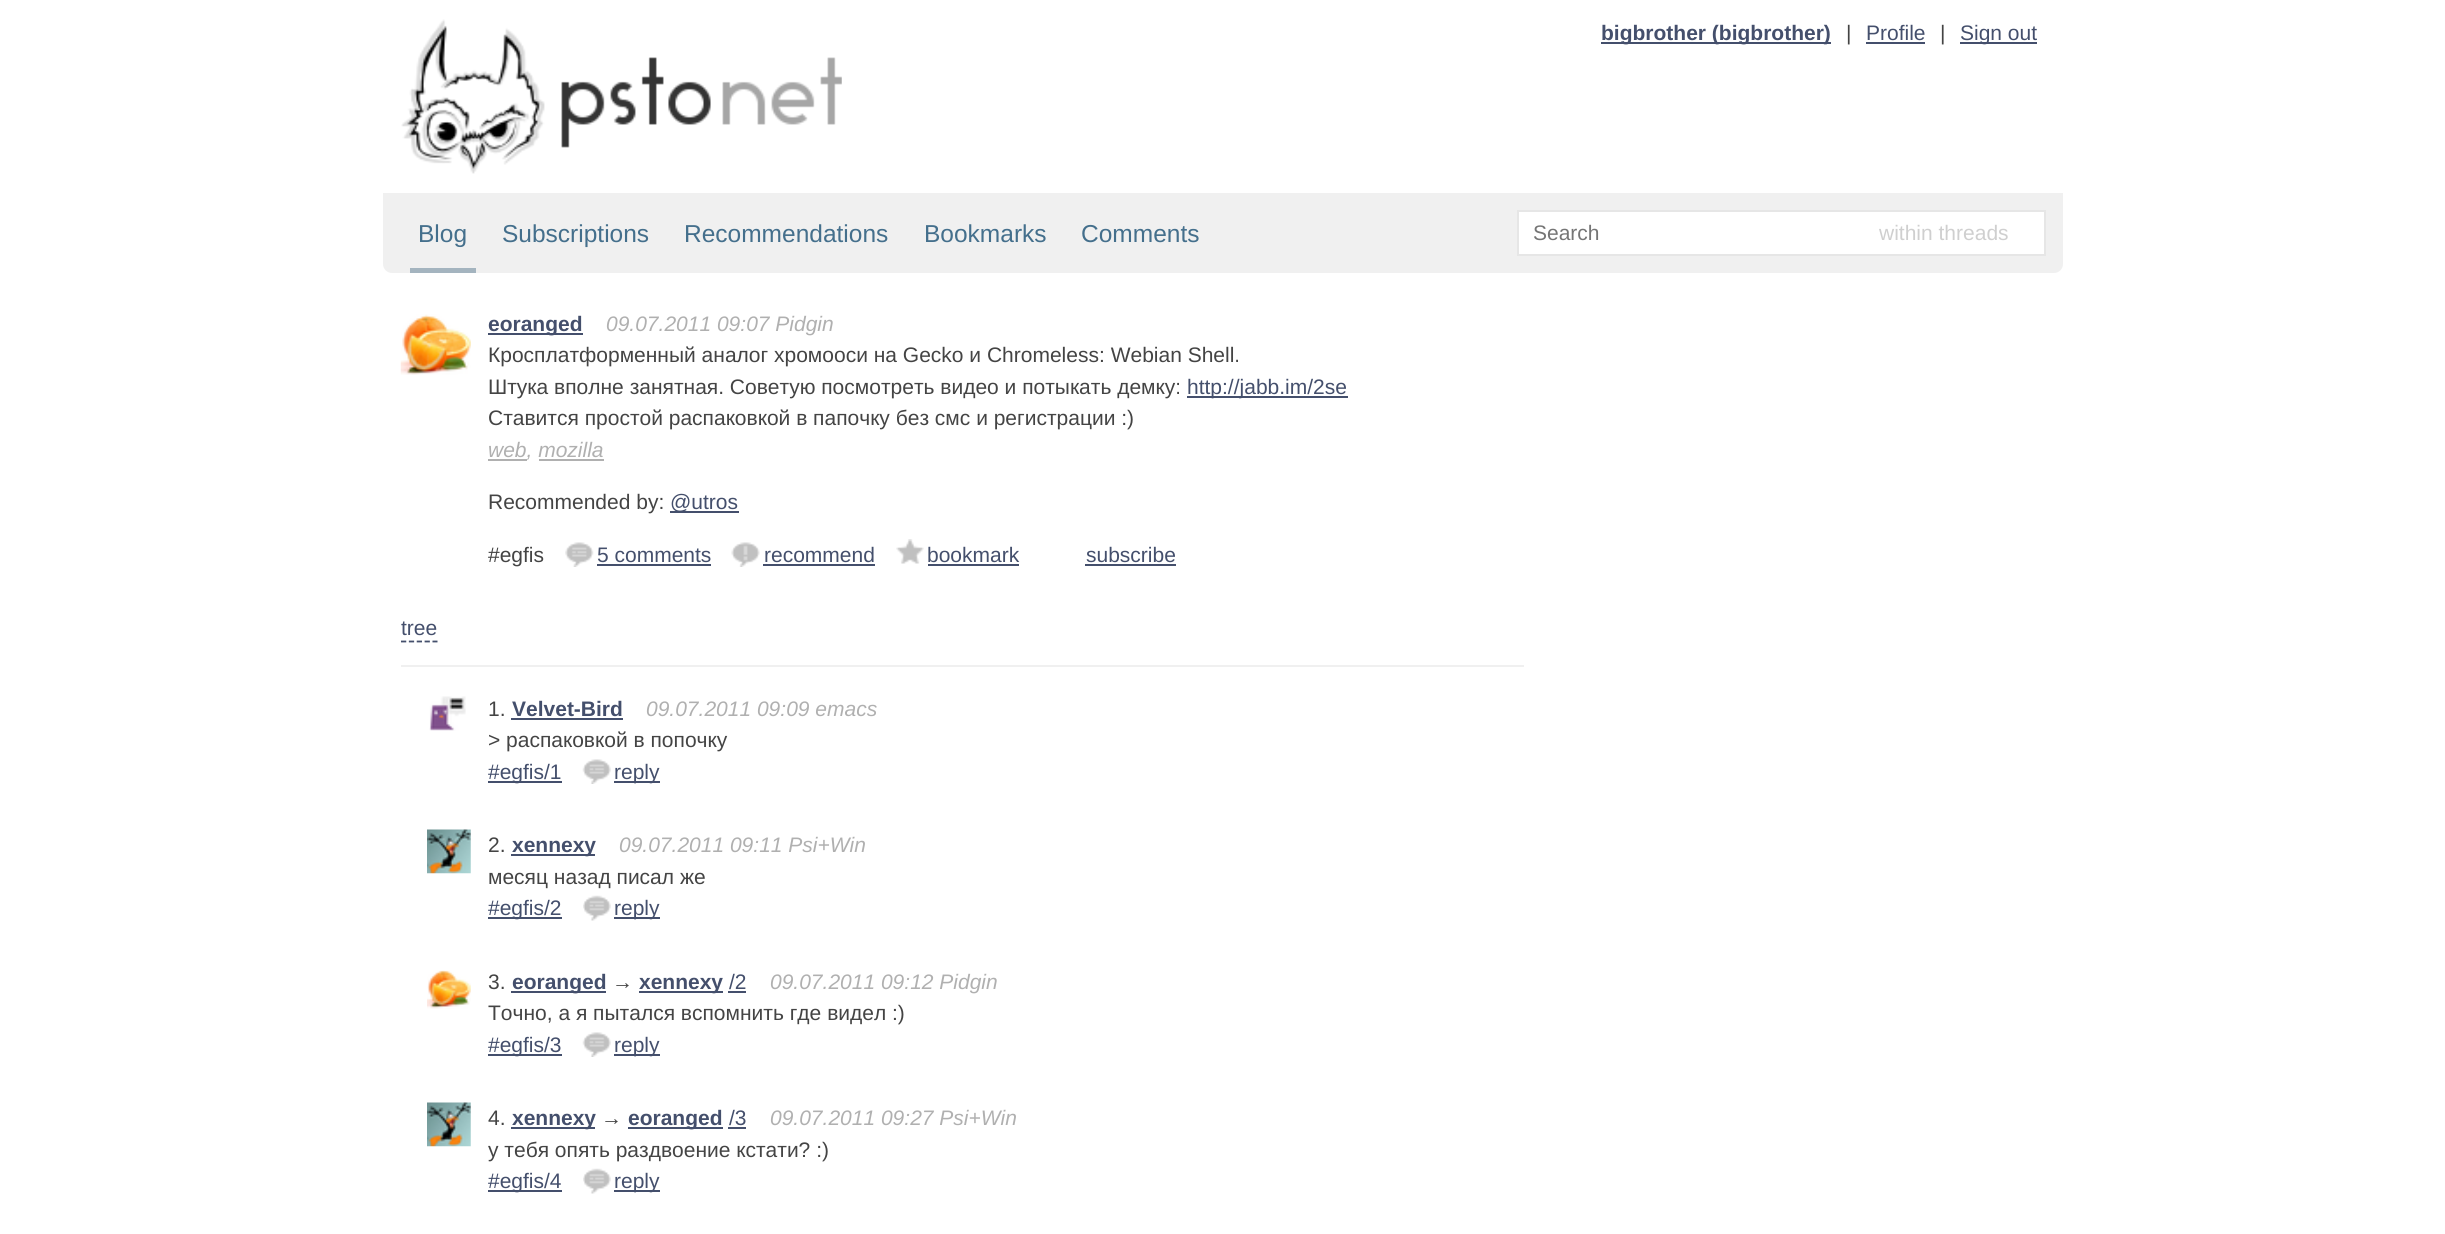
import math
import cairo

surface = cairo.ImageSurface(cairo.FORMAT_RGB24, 2445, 1234)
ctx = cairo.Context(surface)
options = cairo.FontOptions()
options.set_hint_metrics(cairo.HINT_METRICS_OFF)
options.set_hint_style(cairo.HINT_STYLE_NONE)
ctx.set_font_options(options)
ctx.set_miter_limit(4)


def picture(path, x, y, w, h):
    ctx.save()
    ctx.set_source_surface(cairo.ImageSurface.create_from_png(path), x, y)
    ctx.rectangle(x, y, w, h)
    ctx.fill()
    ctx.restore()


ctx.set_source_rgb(1, 1, 1)
ctx.paint()
picture("img1.png", 401, 19, 441, 155)
ctx.set_source_rgb(0.267, 0.31, 0.424)
ctx.rectangle(1601, 42, 230, 2)
ctx.fill()
ctx.select_font_face("Liberation Sans", cairo.FONT_SLANT_NORMAL, cairo.FONT_WEIGHT_BOLD)
ctx.set_font_size(21)
ctx.move_to(1601, 40)
ctx.show_text("bigbrother (bigbrother)")
ctx.select_font_face("Liberation Sans")
ctx.set_source_rgb(0.267, 0.267, 0.267)
ctx.move_to(1846, 40)
ctx.show_text("|")
ctx.set_source_rgb(0.267, 0.31, 0.424)
ctx.move_to(1866, 40)
ctx.show_text("Profile")
ctx.rectangle(1866, 42, 59, 2)
ctx.fill()
ctx.set_source_rgb(0.267, 0.267, 0.267)
ctx.move_to(1940, 40)
ctx.show_text("|")
ctx.set_source_rgb(0.267, 0.31, 0.424)
ctx.rectangle(1960, 42, 77, 2)
ctx.fill()
ctx.move_to(1960, 40)
ctx.show_text("Sign out")
ctx.set_source_rgb(0.941, 0.941, 0.941)
ctx.new_path()
ctx.move_to(383, 193)
ctx.line_to(2063, 193)
ctx.line_to(2063, 264)
ctx.curve_to(2063, 269, 2059, 273, 2054, 273)
ctx.line_to(392, 273)
ctx.curve_to(387, 273, 383, 269, 383, 264)
ctx.close_path()
ctx.fill()
ctx.set_source_rgb(0.643, 0.706, 0.749)
ctx.rectangle(410, 268, 66, 5)
ctx.fill()
ctx.set_font_size(24.5)
ctx.set_source_rgb(0.267, 0.435, 0.549)
ctx.move_to(418, 242)
ctx.show_text("Blog")
ctx.move_to(502, 242)
ctx.show_text("Subscriptions")
ctx.move_to(684, 242)
ctx.show_text("Recommendations")
ctx.move_to(924, 242)
ctx.show_text("Bookmarks")
ctx.move_to(1081, 242)
ctx.show_text("Comments")
ctx.set_source_rgb(1, 1, 1)
ctx.rectangle(1518, 211, 527, 44)
ctx.fill_preserve()
ctx.set_source_rgb(0.902, 0.902, 0.902)
ctx.stroke()
ctx.set_font_size(21)
ctx.set_source_rgb(0.459, 0.459, 0.459)
ctx.move_to(1533, 240)
ctx.show_text("Search")
ctx.set_source_rgb(0.812, 0.812, 0.812)
ctx.move_to(1879, 240)
ctx.show_text("within threads")
picture("img2.png", 400, 314, 71, 61)
ctx.set_source_rgb(0.267, 0.31, 0.424)
ctx.rectangle(488, 333, 95, 2)
ctx.fill()
ctx.select_font_face("Liberation Sans", cairo.FONT_SLANT_NORMAL, cairo.FONT_WEIGHT_BOLD)
ctx.move_to(488, 331)
ctx.show_text("eoranged")
ctx.select_font_face("Liberation Sans", cairo.FONT_SLANT_ITALIC)
ctx.set_source_rgb(0.69, 0.69, 0.69)
ctx.move_to(606, 331)
ctx.show_text("09.07.2011 09:07 Pidgin")
ctx.select_font_face("Liberation Sans")
ctx.set_source_rgb(0.267, 0.267, 0.267)
ctx.move_to(488, 362)
ctx.show_text("Кросплатформенный аналог хромооси на Gecko и Chromeless: Webian Shell.")
ctx.move_to(488, 394)
ctx.show_text("Штука вполне занятная. Советую посмотреть видео и потыкать демку:")
ctx.set_source_rgb(0.267, 0.31, 0.424)
ctx.rectangle(1187, 396, 161, 2)
ctx.fill()
ctx.move_to(1187, 394)
ctx.show_text("http://jabb.im/2se")
ctx.set_source_rgb(0.267, 0.267, 0.267)
ctx.move_to(488, 425)
ctx.show_text("Ставится простой распаковкой в папочку без смс и регистрации :)")
ctx.set_source_rgb(0.69, 0.69, 0.69)
ctx.rectangle(488, 459, 39, 2)
ctx.fill()
ctx.select_font_face("Liberation Sans", cairo.FONT_SLANT_ITALIC)
ctx.move_to(488, 457)
ctx.show_text("web, mozilla")
ctx.rectangle(539, 459, 65, 2)
ctx.fill()
ctx.select_font_face("Liberation Sans")
ctx.set_source_rgb(0.267, 0.267, 0.267)
ctx.move_to(488, 509)
ctx.show_text("Recommended by:")
ctx.set_source_rgb(0.267, 0.31, 0.424)
ctx.rectangle(670, 511, 69, 2)
ctx.fill()
ctx.move_to(670, 509)
ctx.show_text("@utros")
ctx.set_source_rgb(0.267, 0.267, 0.267)
ctx.move_to(488, 562)
ctx.show_text("#egfis")
picture("img3.png", 565, 542, 29, 25)
ctx.set_source_rgb(0.267, 0.31, 0.424)
ctx.move_to(597, 562)
ctx.show_text("5 comments")
ctx.rectangle(597, 564, 114, 2)
ctx.fill()
picture("img4.png", 731, 542, 29, 25)
ctx.move_to(764, 562)
ctx.show_text("recommend")
ctx.rectangle(763, 564, 112, 2)
ctx.fill()
picture("img5.png", 896, 539, 28, 25)
ctx.move_to(927, 562)
ctx.show_text("bookmark")
ctx.rectangle(928, 564, 91, 2)
ctx.fill()
ctx.move_to(1086, 562)
ctx.show_text("subscribe")
ctx.rectangle(1085, 564, 91, 2)
ctx.fill()
ctx.move_to(401, 635)
ctx.show_text("tree")
ctx.new_path()
ctx.move_to(401, 641.5)
ctx.line_to(437.5, 641.5)
ctx.set_line_width(1.8)
ctx.set_dash([5.25, 2.62])
ctx.stroke()
ctx.set_source_rgb(0.941, 0.941, 0.941)
ctx.rectangle(401, 665, 1123, 2)
ctx.fill()
picture("img6.png", 429, 696, 37, 35)
ctx.set_source_rgb(0.267, 0.267, 0.267)
ctx.move_to(488, 716)
ctx.show_text("1.")
ctx.select_font_face("Liberation Sans", cairo.FONT_SLANT_NORMAL, cairo.FONT_WEIGHT_BOLD)
ctx.set_source_rgb(0.267, 0.31, 0.424)
ctx.move_to(512, 716)
ctx.show_text("Velvet-Bird")
ctx.rectangle(511, 718, 112, 2)
ctx.fill()
ctx.select_font_face("Liberation Sans", cairo.FONT_SLANT_ITALIC)
ctx.set_source_rgb(0.69, 0.69, 0.69)
ctx.move_to(646, 716)
ctx.show_text("09.07.2011 09:09 emacs")
ctx.select_font_face("Liberation Sans")
ctx.set_source_rgb(0.267, 0.267, 0.267)
ctx.move_to(488, 747)
ctx.show_text("> распаковкой в попочку")
ctx.set_source_rgb(0.267, 0.31, 0.424)
ctx.rectangle(488, 781, 74, 2)
ctx.fill()
ctx.move_to(488, 779)
ctx.show_text("#egfis/1")
picture("img7.png", 582, 759, 29, 25)
ctx.rectangle(614, 781, 46, 2)
ctx.fill()
ctx.move_to(614, 779)
ctx.show_text("reply")
picture("img8.png", 427, 829, 44, 45)
ctx.set_source_rgb(0.267, 0.267, 0.267)
ctx.move_to(488, 852)
ctx.show_text("2.")
ctx.set_source_rgb(0.267, 0.31, 0.424)
ctx.rectangle(511, 854, 84, 2)
ctx.fill()
ctx.select_font_face("Liberation Sans", cairo.FONT_SLANT_NORMAL, cairo.FONT_WEIGHT_BOLD)
ctx.move_to(512, 852)
ctx.show_text("xennexy")
ctx.select_font_face("Liberation Sans", cairo.FONT_SLANT_ITALIC)
ctx.set_source_rgb(0.69, 0.69, 0.69)
ctx.move_to(619, 852)
ctx.show_text("09.07.2011 09:11 Psi+Win")
ctx.select_font_face("Liberation Sans")
ctx.set_source_rgb(0.267, 0.267, 0.267)
ctx.move_to(488, 884)
ctx.show_text("месяц назад писал же")
ctx.set_source_rgb(0.267, 0.31, 0.424)
ctx.rectangle(488, 917, 74, 2)
ctx.fill()
ctx.move_to(488, 915)
ctx.show_text("#egfis/2")
picture("img9.png", 583, 895, 28, 26)
ctx.rectangle(614, 917, 46, 2)
ctx.fill()
ctx.move_to(614, 915)
ctx.show_text("reply")
picture("img10.png", 427, 970, 44, 39)
ctx.set_source_rgb(0.267, 0.267, 0.267)
ctx.move_to(488, 989)
ctx.show_text("3.")
ctx.set_source_rgb(0.267, 0.31, 0.424)
ctx.rectangle(511, 991, 95, 2)
ctx.fill()
ctx.select_font_face("Liberation Sans", cairo.FONT_SLANT_NORMAL, cairo.FONT_WEIGHT_BOLD)
ctx.move_to(512, 989)
ctx.show_text("eoranged")
ctx.select_font_face("Liberation Sans")
ctx.set_source_rgb(0.267, 0.267, 0.267)
ctx.move_to(612, 989)
ctx.show_text("→")
ctx.set_source_rgb(0.267, 0.31, 0.424)
ctx.rectangle(639, 991, 84, 2)
ctx.fill()
ctx.select_font_face("Liberation Sans", cairo.FONT_SLANT_NORMAL, cairo.FONT_WEIGHT_BOLD)
ctx.move_to(639, 989)
ctx.show_text("xennexy")
ctx.select_font_face("Liberation Sans")
ctx.move_to(729, 989)
ctx.show_text("/2")
ctx.rectangle(728, 991, 18, 2)
ctx.fill()
ctx.select_font_face("Liberation Sans", cairo.FONT_SLANT_ITALIC)
ctx.set_source_rgb(0.69, 0.69, 0.69)
ctx.move_to(770, 989)
ctx.show_text("09.07.2011 09:12 Pidgin")
ctx.select_font_face("Liberation Sans")
ctx.set_source_rgb(0.267, 0.267, 0.267)
ctx.move_to(488, 1020)
ctx.show_text("Точно, а я пытался вспомнить где видел :)")
ctx.set_source_rgb(0.267, 0.31, 0.424)
ctx.rectangle(488, 1054, 74, 2)
ctx.fill()
ctx.move_to(488, 1052)
ctx.show_text("#egfis/3")
picture("img7.png", 582, 1032, 29, 25)
ctx.rectangle(614, 1054, 46, 2)
ctx.fill()
ctx.move_to(614, 1052)
ctx.show_text("reply")
picture("img8.png", 427, 1102, 44, 45)
ctx.set_source_rgb(0.267, 0.267, 0.267)
ctx.move_to(488, 1125)
ctx.show_text("4.")
ctx.set_source_rgb(0.267, 0.31, 0.424)
ctx.rectangle(511, 1127, 84, 2)
ctx.fill()
ctx.select_font_face("Liberation Sans", cairo.FONT_SLANT_NORMAL, cairo.FONT_WEIGHT_BOLD)
ctx.move_to(512, 1125)
ctx.show_text("xennexy")
ctx.select_font_face("Liberation Sans")
ctx.set_source_rgb(0.267, 0.267, 0.267)
ctx.move_to(601, 1125)
ctx.show_text("→")
ctx.set_source_rgb(0.267, 0.31, 0.424)
ctx.rectangle(628, 1127, 95, 2)
ctx.fill()
ctx.select_font_face("Liberation Sans", cairo.FONT_SLANT_NORMAL, cairo.FONT_WEIGHT_BOLD)
ctx.move_to(628, 1125)
ctx.show_text("eoranged")
ctx.select_font_face("Liberation Sans")
ctx.move_to(729, 1125)
ctx.show_text("/3")
ctx.rectangle(728, 1127, 18, 2)
ctx.fill()
ctx.select_font_face("Liberation Sans", cairo.FONT_SLANT_ITALIC)
ctx.set_source_rgb(0.69, 0.69, 0.69)
ctx.move_to(770, 1125)
ctx.show_text("09.07.2011 09:27 Psi+Win")
ctx.select_font_face("Liberation Sans")
ctx.set_source_rgb(0.267, 0.267, 0.267)
ctx.move_to(488, 1157)
ctx.show_text("у тебя опять раздвоение кстати? :)")
ctx.set_source_rgb(0.267, 0.31, 0.424)
ctx.rectangle(488, 1190, 74, 2)
ctx.fill()
ctx.move_to(488, 1188)
ctx.show_text("#egfis/4")
picture("img9.png", 583, 1168, 28, 26)
ctx.rectangle(614, 1190, 46, 2)
ctx.fill()
ctx.move_to(614, 1188)
ctx.show_text("reply")
surface.write_to_png("page.png")
